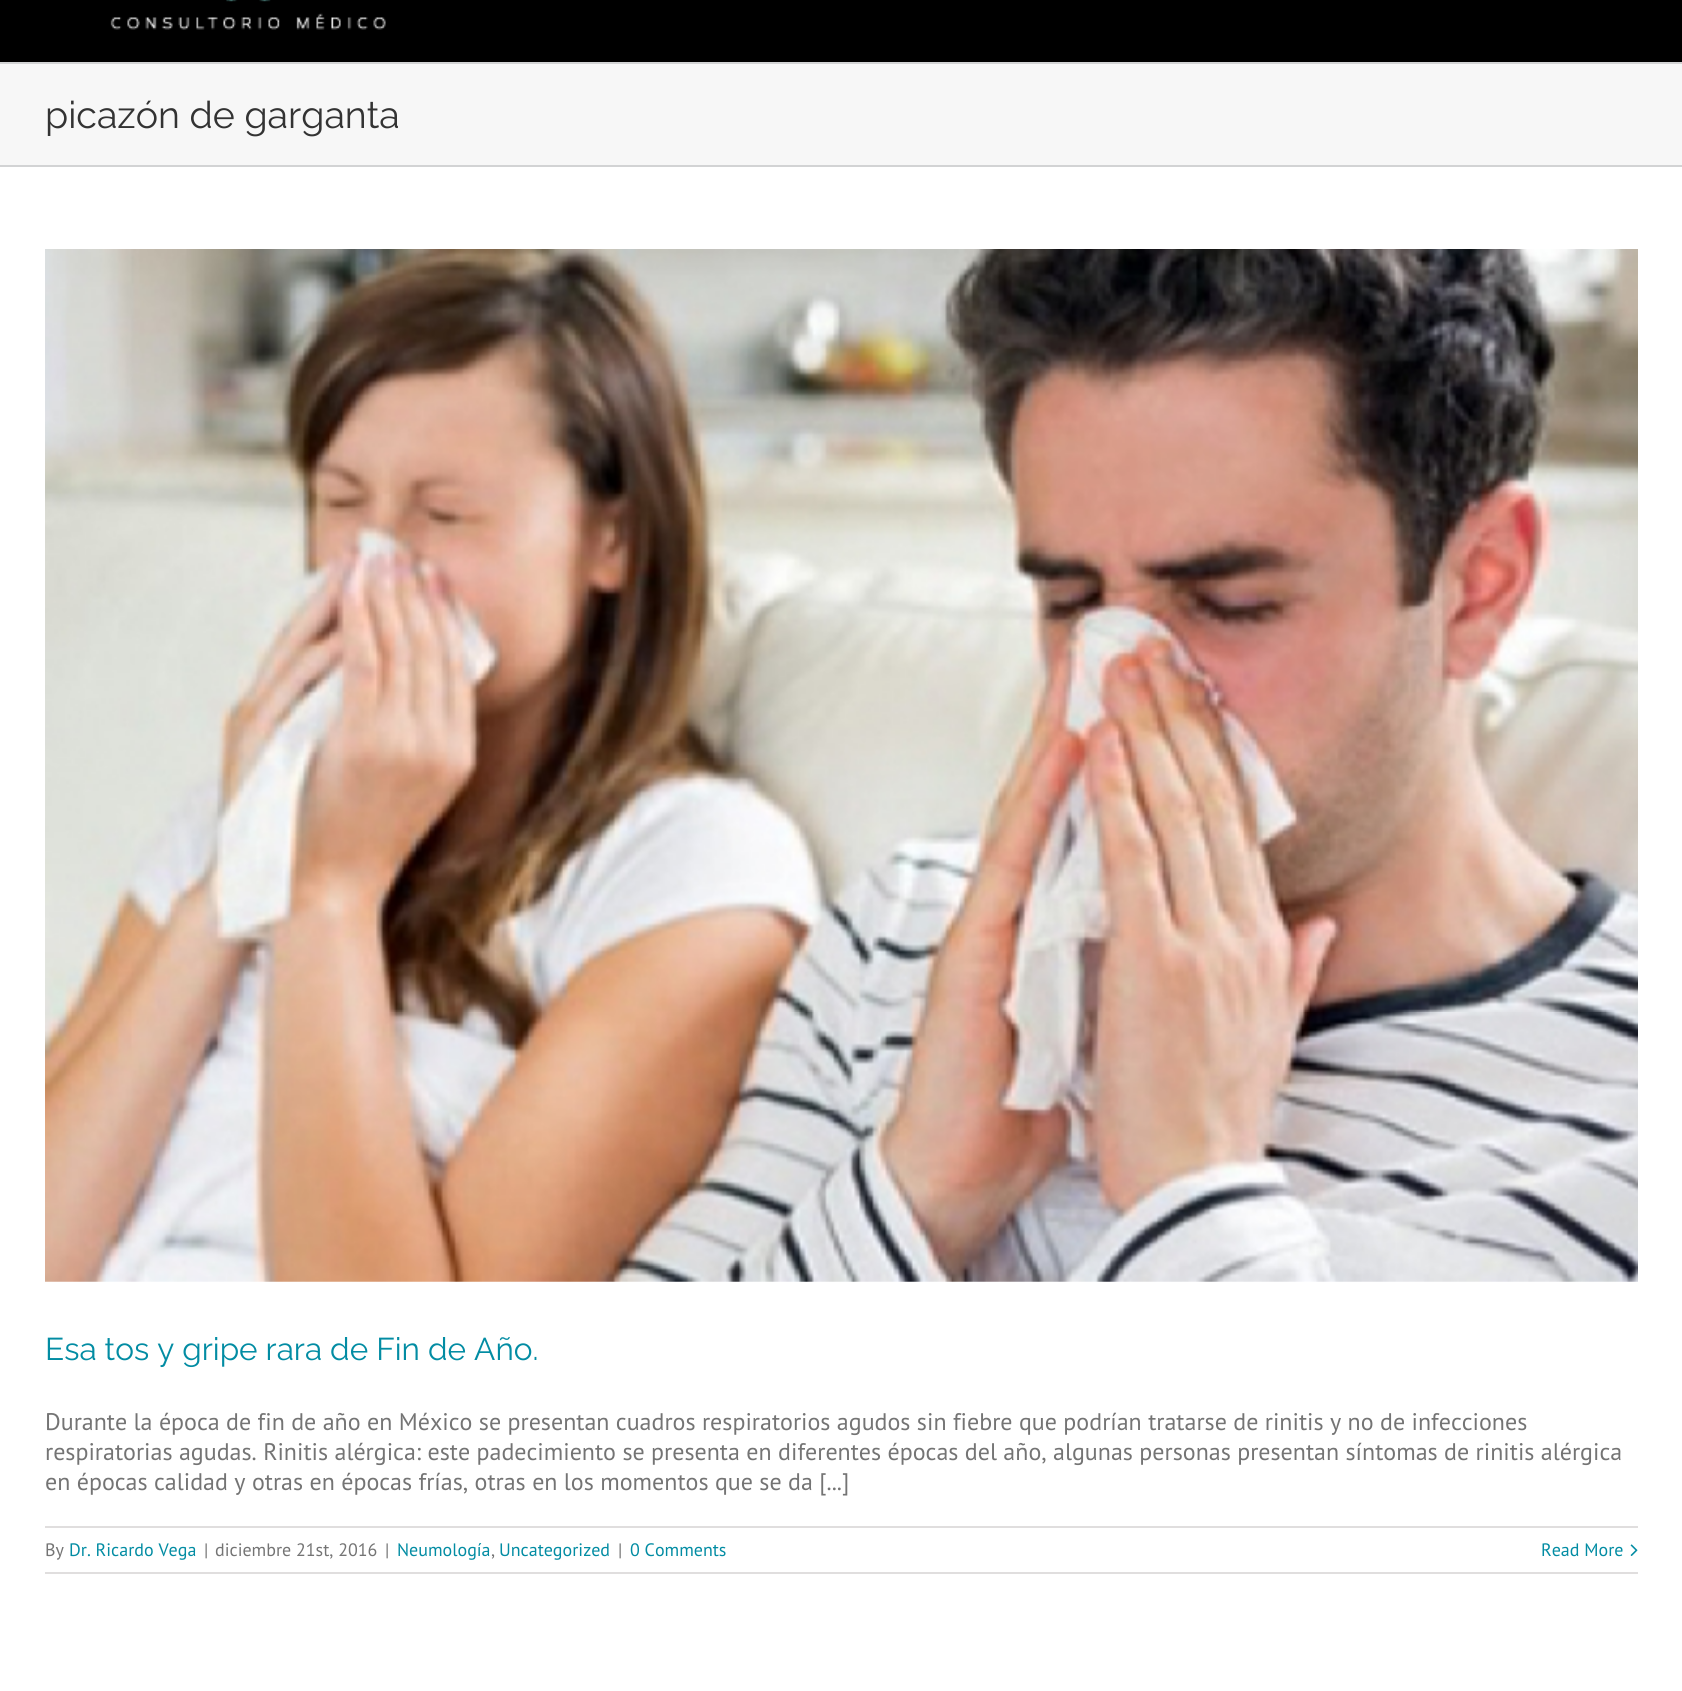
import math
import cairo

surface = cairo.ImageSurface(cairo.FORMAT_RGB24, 1682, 1691)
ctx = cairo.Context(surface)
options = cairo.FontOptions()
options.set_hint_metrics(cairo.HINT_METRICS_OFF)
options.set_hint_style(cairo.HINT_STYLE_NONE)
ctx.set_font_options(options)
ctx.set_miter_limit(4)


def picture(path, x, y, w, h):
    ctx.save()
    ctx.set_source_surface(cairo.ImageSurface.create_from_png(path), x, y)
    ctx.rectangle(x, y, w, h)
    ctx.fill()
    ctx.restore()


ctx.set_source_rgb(1, 1, 1)
ctx.paint()
ctx.set_source_rgb(0, 0, 0)
ctx.rectangle(0, 0, 1682, 62)
ctx.fill()
picture("img1.png", 110, 0, 276, 30)
ctx.set_source_rgb(0.965, 0.965, 0.965)
ctx.rectangle(0, 64, 1682, 101)
ctx.fill()
ctx.set_source_rgb(0.824, 0.827, 0.831)
ctx.rectangle(0, 62, 1682, 2)
ctx.fill()
ctx.rectangle(0, 165, 1682, 2)
ctx.fill()
ctx.select_font_face("Raleway")
ctx.set_font_size(37.5)
ctx.set_source_rgb(0.2, 0.2, 0.2)
ctx.move_to(45, 128)
ctx.show_text("picazón de garganta")
picture("img2.png", 45, 249, 1593, 1033)
ctx.set_font_size(31.5)
ctx.set_source_rgb(0.008, 0.549, 0.639)
ctx.move_to(45, 1360)
ctx.show_text("Esa tos y gripe rara de Fin de Año.")
ctx.select_font_face("PT Sans")
ctx.set_font_size(24)
ctx.set_source_rgb(0.455, 0.455, 0.455)
ctx.move_to(45, 1430)
ctx.show_text("Durante la época de fin de año en México se presentan cuadros respiratorios agudos sin fiebre que podrían tratarse de rinitis y no de infecciones")
ctx.move_to(45, 1460)
ctx.show_text("respiratorias agudas. Rinitis alérgica: este padecimiento se presenta en diferentes épocas del año, algunas personas presentan síntomas de rinitis alérgica")
ctx.move_to(45, 1490)
ctx.show_text("en épocas calidad y otras en épocas frías, otras en los momentos que se da [...]")
ctx.set_source_rgb(0.878, 0.871, 0.871)
ctx.rectangle(45, 1526, 1593, 2)
ctx.fill()
ctx.rectangle(45, 1572, 1593, 2)
ctx.fill()
ctx.set_font_size(18)
ctx.set_source_rgb(0.455, 0.455, 0.455)
ctx.move_to(45, 1556)
ctx.show_text("By")
ctx.set_source_rgb(0.008, 0.549, 0.639)
ctx.move_to(69, 1556)
ctx.show_text("Dr. Ricardo Vega")
ctx.set_source_rgb(0.455, 0.455, 0.455)
ctx.move_to(204, 1556)
ctx.show_text("|")
ctx.move_to(215, 1556)
ctx.show_text("diciembre 21st, 2016")
ctx.move_to(385, 1556)
ctx.show_text("|")
ctx.set_source_rgb(0.008, 0.549, 0.639)
ctx.move_to(397, 1556)
ctx.show_text("Neumología")
ctx.set_source_rgb(0.455, 0.455, 0.455)
ctx.move_to(491, 1556)
ctx.show_text(",")
ctx.set_source_rgb(0.008, 0.549, 0.639)
ctx.move_to(499, 1556)
ctx.show_text("Uncategorized")
ctx.set_source_rgb(0.455, 0.455, 0.455)
ctx.move_to(618, 1556)
ctx.show_text("|")
ctx.set_source_rgb(0.008, 0.549, 0.639)
ctx.move_to(630, 1556)
ctx.show_text("0 Comments")
ctx.move_to(1541, 1556)
ctx.show_text("Read More")
picture("img3.png", 1630, 1544, 8, 12)
surface.write_to_png("page.png")
